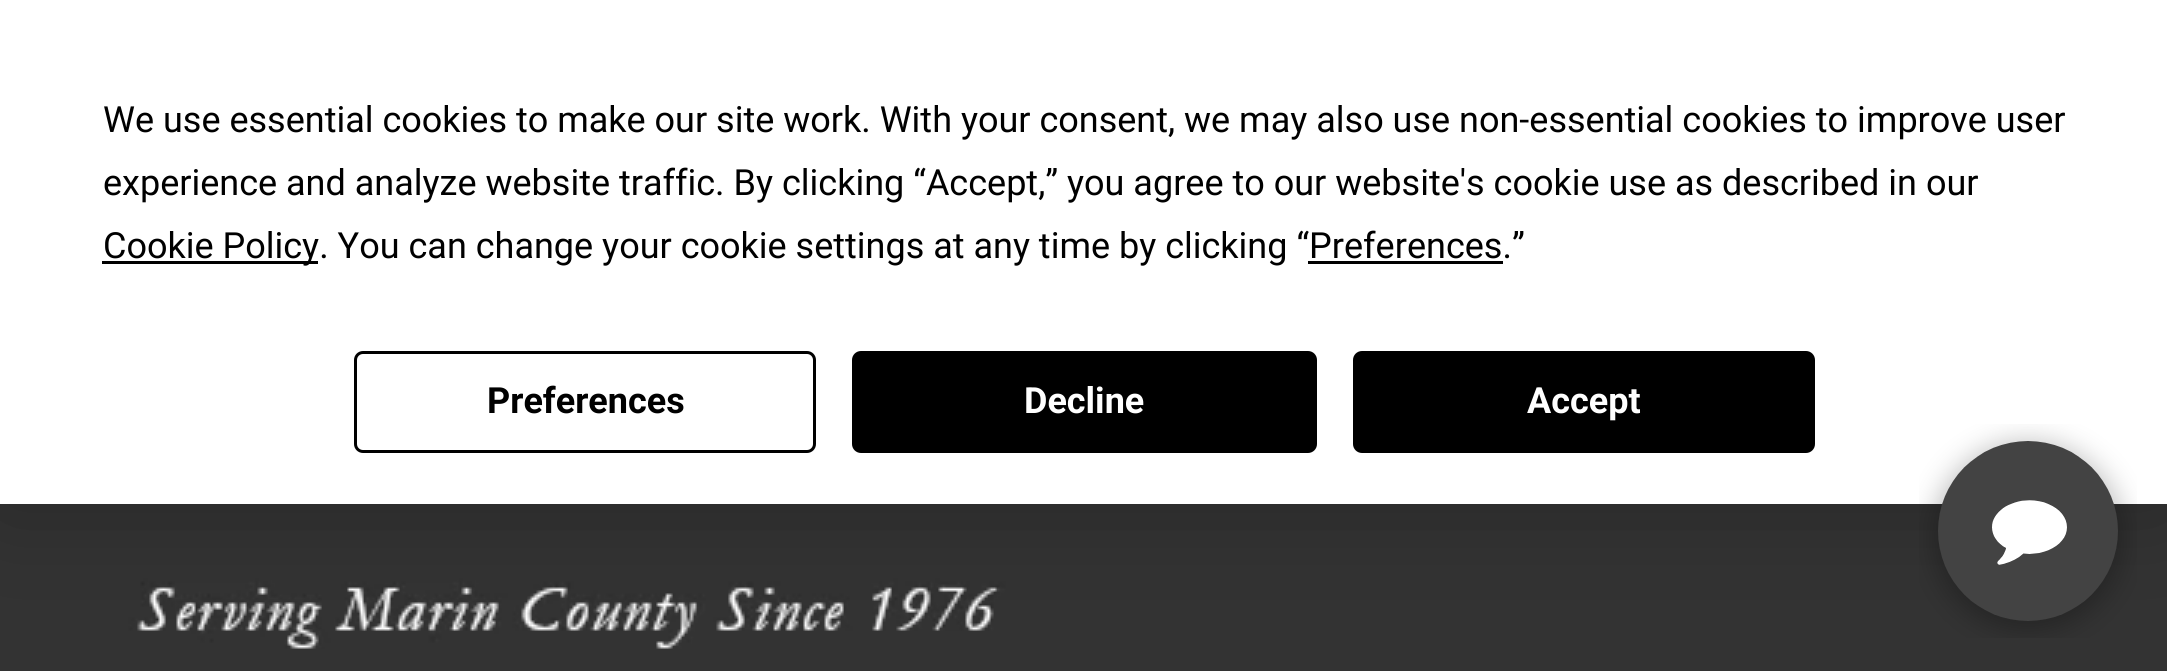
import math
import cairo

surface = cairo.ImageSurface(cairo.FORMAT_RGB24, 2167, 671)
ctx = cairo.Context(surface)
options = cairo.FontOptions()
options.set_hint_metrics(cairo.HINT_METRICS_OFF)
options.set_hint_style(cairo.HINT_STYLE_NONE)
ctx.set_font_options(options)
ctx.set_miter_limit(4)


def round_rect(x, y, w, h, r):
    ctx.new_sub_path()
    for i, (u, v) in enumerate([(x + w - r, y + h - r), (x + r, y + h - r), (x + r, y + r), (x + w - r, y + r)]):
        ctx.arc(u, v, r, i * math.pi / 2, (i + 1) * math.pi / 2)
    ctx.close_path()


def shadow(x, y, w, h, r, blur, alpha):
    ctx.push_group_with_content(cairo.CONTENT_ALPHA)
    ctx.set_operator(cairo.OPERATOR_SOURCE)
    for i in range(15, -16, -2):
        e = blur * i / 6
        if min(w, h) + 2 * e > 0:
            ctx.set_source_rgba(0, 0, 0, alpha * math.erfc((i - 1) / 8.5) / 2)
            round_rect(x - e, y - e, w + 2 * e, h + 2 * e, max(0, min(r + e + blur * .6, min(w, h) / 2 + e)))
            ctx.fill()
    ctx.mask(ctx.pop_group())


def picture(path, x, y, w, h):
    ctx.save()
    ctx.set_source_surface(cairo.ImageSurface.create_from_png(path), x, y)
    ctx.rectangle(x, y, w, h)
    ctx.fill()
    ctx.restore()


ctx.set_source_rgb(0.2, 0.2, 0.2)
ctx.paint()
picture("img1.png", 45, 504, 1045, 145)
ctx.set_source_rgb(0, 0, 0)
shadow(0, 0, 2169, 504, 0, 52.5, 0.25)
ctx.set_source_rgb(1, 1, 1)
ctx.rectangle(0, 0, 2167, 504)
ctx.fill()
ctx.select_font_face("Roboto")
ctx.set_font_size(36)
ctx.set_source_rgb(0, 0, 0)
ctx.move_to(103, 132)
ctx.show_text("We use essential cookies to make our site work. With your consent, we may also use non-essential cookies to improve user")
ctx.move_to(103, 195)
ctx.show_text("experience and analyze website traffic. By clicking “Accept,” you agree to our website's cookie use as described in our")
ctx.rectangle(102, 261, 216, 3)
ctx.fill()
ctx.move_to(103, 258)
ctx.show_text("Cookie Policy. You can change your cookie settings at any time by clicking “Preferences.”")
ctx.rectangle(1308, 261, 195, 3)
ctx.fill()
round_rect(355.5, 352.5, 459, 99, 7.5)
ctx.set_line_width(3)
ctx.stroke()
ctx.select_font_face("Roboto", cairo.FONT_SLANT_NORMAL, cairo.FONT_WEIGHT_BOLD)
ctx.move_to(487, 413)
ctx.show_text("Preferences")
round_rect(853.5, 352.5, 462, 99, 7.5)
ctx.fill_preserve()
ctx.stroke()
ctx.set_source_rgb(1, 1, 1)
ctx.move_to(1024, 413)
ctx.show_text("Decline")
ctx.set_source_rgb(0, 0, 0)
round_rect(1354.5, 352.5, 459, 99, 7.5)
ctx.fill_preserve()
ctx.stroke()
ctx.set_source_rgb(1, 1, 1)
ctx.move_to(1527, 413)
ctx.show_text("Accept")
picture("img2.png", 1919, 424, 218, 214)
surface.write_to_png("page.png")
